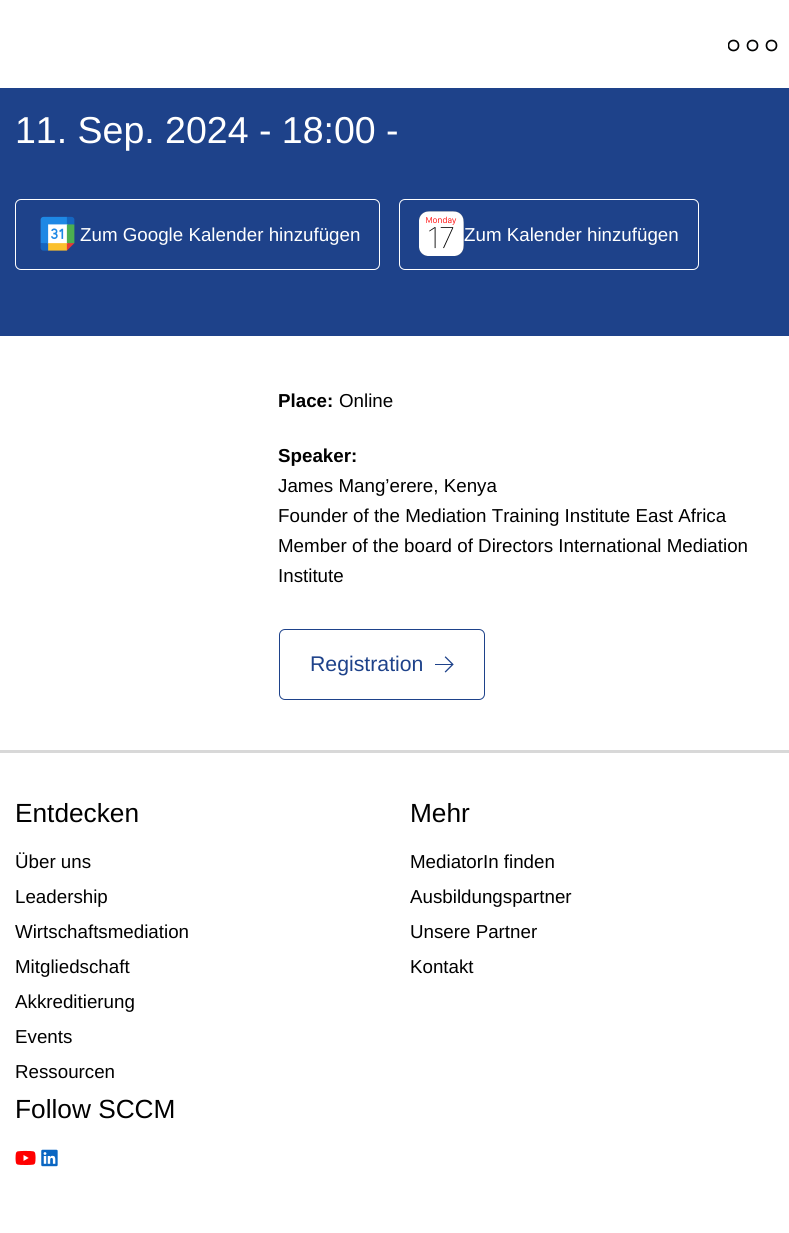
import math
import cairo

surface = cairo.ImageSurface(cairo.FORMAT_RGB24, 789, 1233)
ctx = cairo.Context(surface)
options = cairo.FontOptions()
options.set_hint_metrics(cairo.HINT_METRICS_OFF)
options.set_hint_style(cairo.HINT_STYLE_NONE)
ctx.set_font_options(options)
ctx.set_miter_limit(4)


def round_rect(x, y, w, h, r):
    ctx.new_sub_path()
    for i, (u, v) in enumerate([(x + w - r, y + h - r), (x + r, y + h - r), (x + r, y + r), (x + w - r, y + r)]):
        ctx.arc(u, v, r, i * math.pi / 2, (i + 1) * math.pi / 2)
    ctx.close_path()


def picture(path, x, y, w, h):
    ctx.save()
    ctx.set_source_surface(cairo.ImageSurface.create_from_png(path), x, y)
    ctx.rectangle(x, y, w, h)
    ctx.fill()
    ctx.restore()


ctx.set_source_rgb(1, 1, 1)
ctx.paint()
ctx.save()
ctx.rectangle(728, 26, 50, 38)
ctx.clip()
ctx.arc(733.5, 45.5, 5, 0, 2 * math.pi)
ctx.set_source_rgb(0.004, 0.008, 0.008)
ctx.set_line_width(1.7)
ctx.stroke()
ctx.restore()
ctx.arc(752.5, 45.5, 5, 0, 2 * math.pi)
ctx.set_source_rgb(0.004, 0.008, 0.008)
ctx.set_line_width(1.7)
ctx.stroke()
ctx.arc(771.5, 45.5, 5, 0, 2 * math.pi)
ctx.stroke()
ctx.set_source_rgb(0.118, 0.259, 0.541)
ctx.rectangle(0, 88, 789, 248)
ctx.fill()
ctx.select_font_face("Liberation Sans")
ctx.set_font_size(37.5)
ctx.set_source_rgb(1, 1, 1)
ctx.move_to(15, 143)
ctx.show_text("11. Sep. 2024 - 18:00 -")
round_rect(15.5, 199.5, 364, 70, 5.5)
ctx.set_line_width(1)
ctx.stroke()
picture("img1.png", 40, 216, 35, 35)
ctx.set_font_size(18.75)
ctx.move_to(80, 241)
ctx.show_text("Zum Google Kalender hinzufügen")
round_rect(399.5, 199.5, 299, 70, 5.5)
ctx.stroke()
picture("img2.png", 419, 211, 45, 45)
ctx.move_to(464, 241)
ctx.show_text("Zum Kalender hinzufügen")
ctx.select_font_face("Liberation Sans", cairo.FONT_SLANT_NORMAL, cairo.FONT_WEIGHT_BOLD)
ctx.set_source_rgb(0, 0, 0)
ctx.move_to(278, 407)
ctx.show_text("Place:")
ctx.select_font_face("Liberation Sans")
ctx.move_to(339, 407)
ctx.show_text("Online")
ctx.select_font_face("Liberation Sans", cairo.FONT_SLANT_NORMAL, cairo.FONT_WEIGHT_BOLD)
ctx.move_to(278, 462)
ctx.show_text("Speaker:")
ctx.select_font_face("Liberation Sans")
ctx.move_to(278, 492)
ctx.show_text("James Mang’erere, Kenya")
ctx.move_to(278, 522)
ctx.show_text("Founder of the Mediation Training Institute East Africa")
ctx.move_to(278, 552)
ctx.show_text("Member of the board of Directors International Mediation")
ctx.move_to(278, 582)
ctx.show_text("Institute")
round_rect(279.5, 629.5, 205, 70, 5.5)
ctx.set_source_rgb(0.118, 0.259, 0.541)
ctx.stroke()
ctx.set_font_size(21.25)
ctx.move_to(310, 671)
ctx.show_text("Registration")
picture("img3.png", 435, 656, 19, 17)
ctx.set_source_rgb(0.847, 0.847, 0.847)
ctx.rectangle(0, 750, 789, 3)
ctx.fill()
ctx.set_font_size(26.25)
ctx.set_source_rgb(0, 0, 0)
ctx.move_to(15, 822)
ctx.show_text("Entdecken")
ctx.set_font_size(18.75)
ctx.move_to(15, 868)
ctx.show_text("Über uns")
ctx.move_to(15, 903)
ctx.show_text("Leadership")
ctx.move_to(15, 938)
ctx.show_text("Wirtschaftsmediation")
ctx.move_to(15, 973)
ctx.show_text("Mitgliedschaft")
ctx.move_to(15, 1008)
ctx.show_text("Akkreditierung")
ctx.move_to(15, 1043)
ctx.show_text("Events")
ctx.move_to(15, 1078)
ctx.show_text("Ressourcen")
ctx.set_font_size(26.25)
ctx.move_to(410, 822)
ctx.show_text("Mehr")
ctx.set_font_size(18.75)
ctx.move_to(410, 868)
ctx.show_text("MediatorIn finden")
ctx.move_to(410, 903)
ctx.show_text("Ausbildungspartner")
ctx.move_to(410, 938)
ctx.show_text("Unsere Partner")
ctx.move_to(410, 973)
ctx.show_text("Kontakt")
ctx.set_font_size(26.25)
ctx.move_to(15, 1118)
ctx.show_text("Follow SCCM")
picture("img4.png", 15, 1150, 21, 15)
picture("img5.png", 41, 1149, 17, 18)
surface.write_to_png("page.png")
